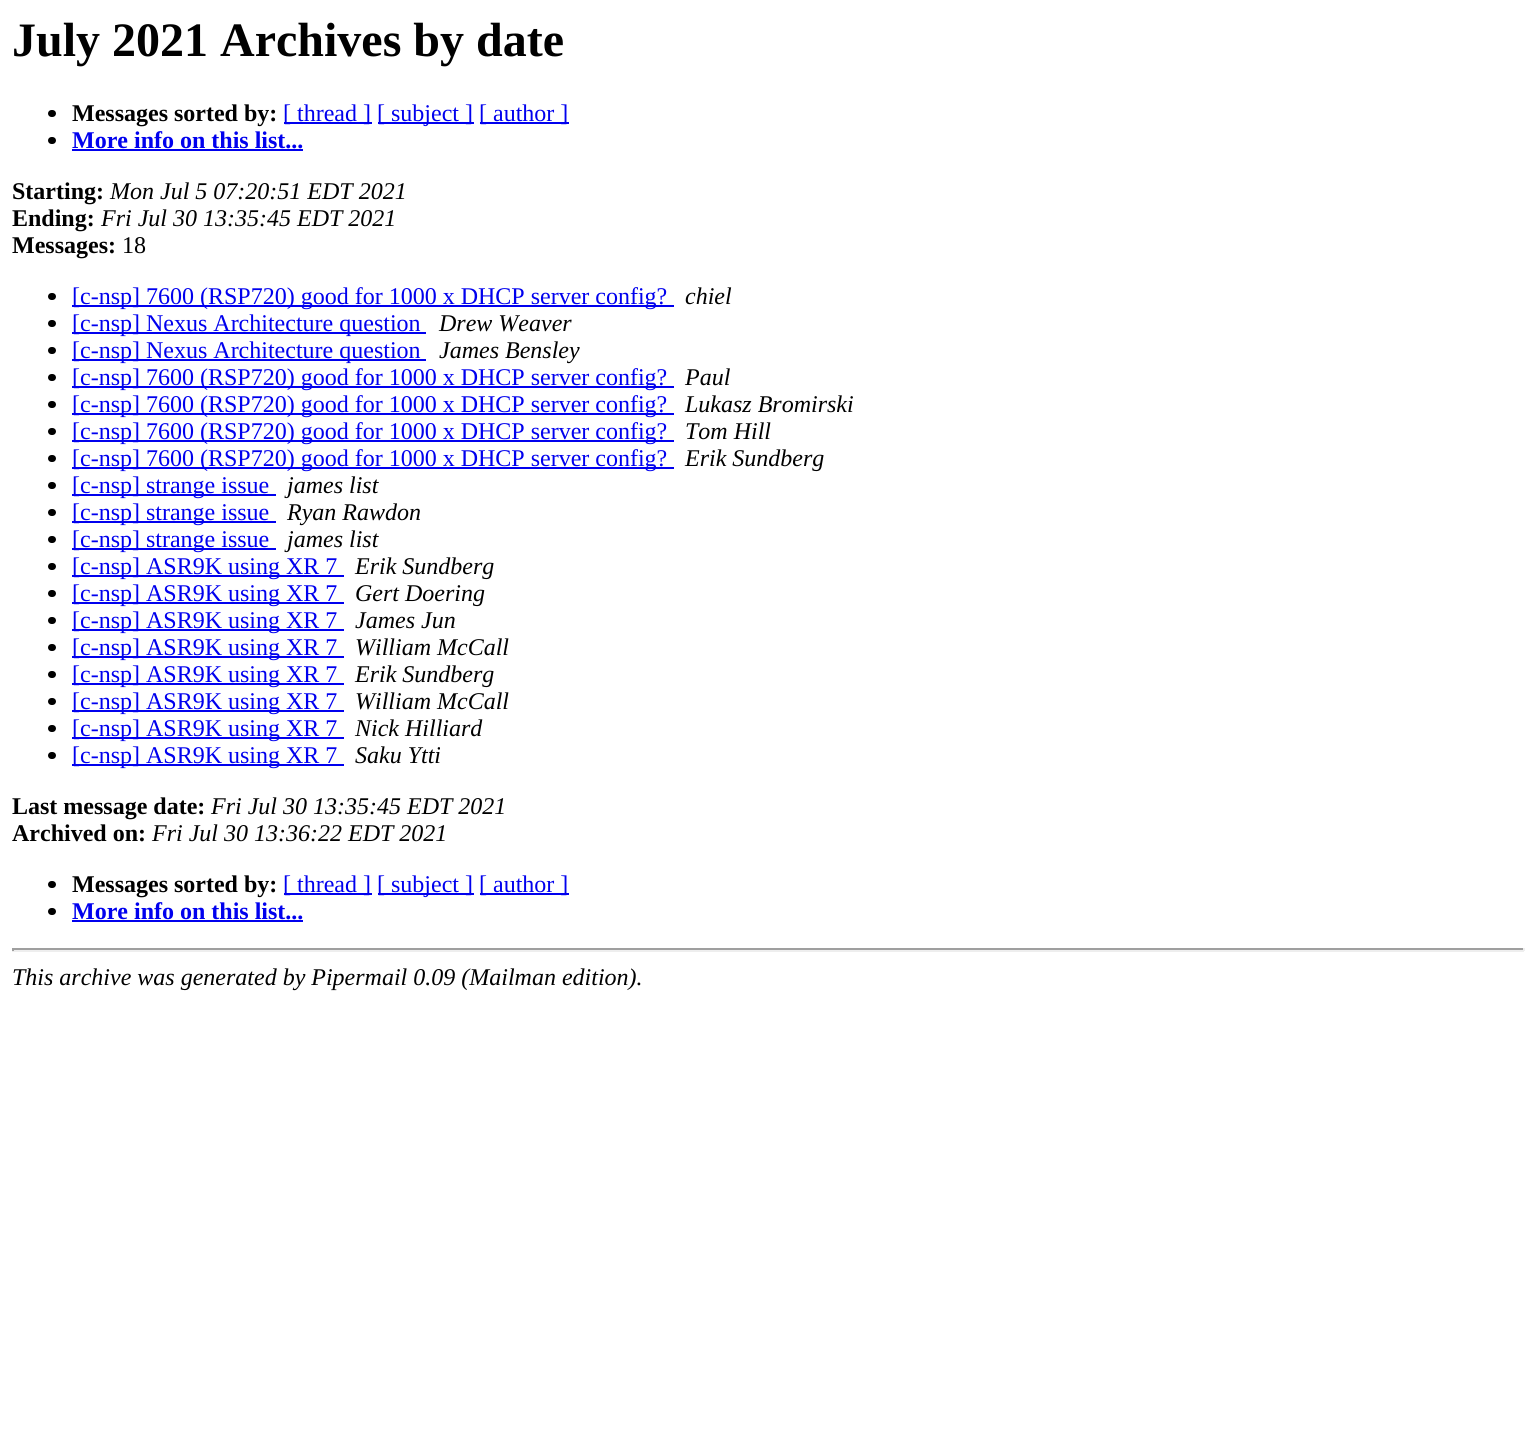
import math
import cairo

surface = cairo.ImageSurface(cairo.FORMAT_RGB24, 1536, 1442)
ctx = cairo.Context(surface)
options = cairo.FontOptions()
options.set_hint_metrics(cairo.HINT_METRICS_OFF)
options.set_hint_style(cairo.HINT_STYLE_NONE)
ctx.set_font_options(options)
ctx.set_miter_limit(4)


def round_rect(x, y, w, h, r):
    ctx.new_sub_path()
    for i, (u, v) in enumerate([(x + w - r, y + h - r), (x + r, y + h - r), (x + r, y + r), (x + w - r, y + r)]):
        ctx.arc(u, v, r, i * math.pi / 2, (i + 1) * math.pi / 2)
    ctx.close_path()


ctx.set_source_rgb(1, 1, 1)
ctx.paint()
ctx.select_font_face("Liberation Serif", cairo.FONT_SLANT_NORMAL, cairo.FONT_WEIGHT_BOLD)
ctx.set_font_size(48)
ctx.set_source_rgb(0, 0, 0)
ctx.move_to(12, 56)
ctx.show_text("July 2021 Archives by date")
round_rect(48, 110, 8, 7, 3.5)
ctx.fill()
ctx.set_font_size(24)
ctx.move_to(72, 121)
ctx.show_text("Messages sorted by:")
ctx.set_source_rgb(0, 0, 0.933)
ctx.rectangle(284, 122, 88, 2)
ctx.fill()
ctx.select_font_face("Liberation Serif")
ctx.move_to(283, 121)
ctx.show_text("[ thread ]")
ctx.rectangle(378, 122, 96, 2)
ctx.fill()
ctx.move_to(377, 121)
ctx.show_text("[ subject ]")
ctx.rectangle(480, 122, 89, 2)
ctx.fill()
ctx.move_to(479, 121)
ctx.show_text("[ author ]")
ctx.set_source_rgb(0, 0, 0)
round_rect(48, 137, 8, 7, 3.5)
ctx.fill()
ctx.select_font_face("Liberation Serif", cairo.FONT_SLANT_NORMAL, cairo.FONT_WEIGHT_BOLD)
ctx.set_source_rgb(0, 0, 0.933)
ctx.move_to(72, 148)
ctx.show_text("More info on this list...")
ctx.rectangle(72, 149, 231, 2)
ctx.fill()
ctx.set_source_rgb(0, 0, 0)
ctx.move_to(12, 199)
ctx.show_text("Starting:")
ctx.select_font_face("Liberation Serif", cairo.FONT_SLANT_ITALIC)
ctx.move_to(110, 199)
ctx.show_text("Mon Jul 5 07:20:51 EDT 2021")
ctx.select_font_face("Liberation Serif", cairo.FONT_SLANT_NORMAL, cairo.FONT_WEIGHT_BOLD)
ctx.move_to(12, 226)
ctx.show_text("Ending:")
ctx.select_font_face("Liberation Serif", cairo.FONT_SLANT_ITALIC)
ctx.move_to(101, 226)
ctx.show_text("Fri Jul 30 13:35:45 EDT 2021")
ctx.select_font_face("Liberation Serif", cairo.FONT_SLANT_NORMAL, cairo.FONT_WEIGHT_BOLD)
ctx.move_to(12, 253)
ctx.show_text("Messages:")
ctx.select_font_face("Liberation Serif")
ctx.move_to(122, 253)
ctx.show_text("18")
round_rect(48, 293, 8, 7, 3.5)
ctx.fill()
ctx.set_source_rgb(0, 0, 0.933)
ctx.rectangle(72, 305, 602, 2)
ctx.fill()
ctx.move_to(72, 304)
ctx.show_text("[c-nsp] 7600 (RSP720) good for 1000 x DHCP server config?")
ctx.select_font_face("Liberation Serif", cairo.FONT_SLANT_ITALIC)
ctx.set_source_rgb(0, 0, 0)
ctx.move_to(685, 304)
ctx.show_text("chiel")
round_rect(48, 320, 8, 7, 3.5)
ctx.fill()
ctx.set_source_rgb(0, 0, 0.933)
ctx.rectangle(72, 332, 354, 2)
ctx.fill()
ctx.select_font_face("Liberation Serif")
ctx.move_to(72, 331)
ctx.show_text("[c-nsp] Nexus Architecture question")
ctx.select_font_face("Liberation Serif", cairo.FONT_SLANT_ITALIC)
ctx.set_source_rgb(0, 0, 0)
ctx.move_to(439, 331)
ctx.show_text("Drew Weaver")
round_rect(48, 347, 8, 7, 3.5)
ctx.fill()
ctx.set_source_rgb(0, 0, 0.933)
ctx.rectangle(72, 359, 354, 2)
ctx.fill()
ctx.select_font_face("Liberation Serif")
ctx.move_to(72, 358)
ctx.show_text("[c-nsp] Nexus Architecture question")
ctx.select_font_face("Liberation Serif", cairo.FONT_SLANT_ITALIC)
ctx.set_source_rgb(0, 0, 0)
ctx.move_to(439, 358)
ctx.show_text("James Bensley")
round_rect(48, 374, 8, 7, 3.5)
ctx.fill()
ctx.set_source_rgb(0, 0, 0.933)
ctx.rectangle(72, 386, 602, 2)
ctx.fill()
ctx.select_font_face("Liberation Serif")
ctx.move_to(72, 385)
ctx.show_text("[c-nsp] 7600 (RSP720) good for 1000 x DHCP server config?")
ctx.select_font_face("Liberation Serif", cairo.FONT_SLANT_ITALIC)
ctx.set_source_rgb(0, 0, 0)
ctx.move_to(685, 385)
ctx.show_text("Paul")
round_rect(48, 401, 8, 7, 3.5)
ctx.fill()
ctx.set_source_rgb(0, 0, 0.933)
ctx.rectangle(72, 413, 602, 2)
ctx.fill()
ctx.select_font_face("Liberation Serif")
ctx.move_to(72, 412)
ctx.show_text("[c-nsp] 7600 (RSP720) good for 1000 x DHCP server config?")
ctx.select_font_face("Liberation Serif", cairo.FONT_SLANT_ITALIC)
ctx.set_source_rgb(0, 0, 0)
ctx.move_to(685, 412)
ctx.show_text("Lukasz Bromirski")
round_rect(48, 428, 8, 7, 3.5)
ctx.fill()
ctx.set_source_rgb(0, 0, 0.933)
ctx.rectangle(72, 440, 602, 2)
ctx.fill()
ctx.select_font_face("Liberation Serif")
ctx.move_to(72, 439)
ctx.show_text("[c-nsp] 7600 (RSP720) good for 1000 x DHCP server config?")
ctx.select_font_face("Liberation Serif", cairo.FONT_SLANT_ITALIC)
ctx.set_source_rgb(0, 0, 0)
ctx.move_to(685, 439)
ctx.show_text("Tom Hill")
round_rect(48, 455, 8, 7, 3.5)
ctx.fill()
ctx.set_source_rgb(0, 0, 0.933)
ctx.rectangle(72, 467, 602, 2)
ctx.fill()
ctx.select_font_face("Liberation Serif")
ctx.move_to(72, 466)
ctx.show_text("[c-nsp] 7600 (RSP720) good for 1000 x DHCP server config?")
ctx.select_font_face("Liberation Serif", cairo.FONT_SLANT_ITALIC)
ctx.set_source_rgb(0, 0, 0)
ctx.move_to(685, 466)
ctx.show_text("Erik Sundberg")
round_rect(48, 482, 8, 7, 3.5)
ctx.fill()
ctx.set_source_rgb(0, 0, 0.933)
ctx.rectangle(72, 494, 204, 2)
ctx.fill()
ctx.select_font_face("Liberation Serif")
ctx.move_to(72, 493)
ctx.show_text("[c-nsp] strange issue")
ctx.select_font_face("Liberation Serif", cairo.FONT_SLANT_ITALIC)
ctx.set_source_rgb(0, 0, 0)
ctx.move_to(287, 493)
ctx.show_text("james list")
round_rect(48, 509, 8, 7, 3.5)
ctx.fill()
ctx.set_source_rgb(0, 0, 0.933)
ctx.rectangle(72, 521, 204, 2)
ctx.fill()
ctx.select_font_face("Liberation Serif")
ctx.move_to(72, 520)
ctx.show_text("[c-nsp] strange issue")
ctx.select_font_face("Liberation Serif", cairo.FONT_SLANT_ITALIC)
ctx.set_source_rgb(0, 0, 0)
ctx.move_to(287, 520)
ctx.show_text("Ryan Rawdon")
round_rect(48, 536, 8, 7, 3.5)
ctx.fill()
ctx.set_source_rgb(0, 0, 0.933)
ctx.rectangle(72, 548, 204, 2)
ctx.fill()
ctx.select_font_face("Liberation Serif")
ctx.move_to(72, 547)
ctx.show_text("[c-nsp] strange issue")
ctx.select_font_face("Liberation Serif", cairo.FONT_SLANT_ITALIC)
ctx.set_source_rgb(0, 0, 0)
ctx.move_to(287, 547)
ctx.show_text("james list")
round_rect(48, 563, 8, 7, 3.5)
ctx.fill()
ctx.set_source_rgb(0, 0, 0.933)
ctx.rectangle(72, 575, 272, 2)
ctx.fill()
ctx.select_font_face("Liberation Serif")
ctx.move_to(72, 574)
ctx.show_text("[c-nsp] ASR9K using XR 7")
ctx.select_font_face("Liberation Serif", cairo.FONT_SLANT_ITALIC)
ctx.set_source_rgb(0, 0, 0)
ctx.move_to(355, 574)
ctx.show_text("Erik Sundberg")
round_rect(48, 590, 8, 7, 3.5)
ctx.fill()
ctx.set_source_rgb(0, 0, 0.933)
ctx.rectangle(72, 602, 272, 2)
ctx.fill()
ctx.select_font_face("Liberation Serif")
ctx.move_to(72, 601)
ctx.show_text("[c-nsp] ASR9K using XR 7")
ctx.select_font_face("Liberation Serif", cairo.FONT_SLANT_ITALIC)
ctx.set_source_rgb(0, 0, 0)
ctx.move_to(355, 601)
ctx.show_text("Gert Doering")
round_rect(48, 617, 8, 7, 3.5)
ctx.fill()
ctx.set_source_rgb(0, 0, 0.933)
ctx.rectangle(72, 629, 272, 2)
ctx.fill()
ctx.select_font_face("Liberation Serif")
ctx.move_to(72, 628)
ctx.show_text("[c-nsp] ASR9K using XR 7")
ctx.select_font_face("Liberation Serif", cairo.FONT_SLANT_ITALIC)
ctx.set_source_rgb(0, 0, 0)
ctx.move_to(355, 628)
ctx.show_text("James Jun")
round_rect(48, 644, 8, 7, 3.5)
ctx.fill()
ctx.set_source_rgb(0, 0, 0.933)
ctx.rectangle(72, 656, 272, 2)
ctx.fill()
ctx.select_font_face("Liberation Serif")
ctx.move_to(72, 655)
ctx.show_text("[c-nsp] ASR9K using XR 7")
ctx.select_font_face("Liberation Serif", cairo.FONT_SLANT_ITALIC)
ctx.set_source_rgb(0, 0, 0)
ctx.move_to(355, 655)
ctx.show_text("William McCall")
round_rect(48, 671, 8, 7, 3.5)
ctx.fill()
ctx.set_source_rgb(0, 0, 0.933)
ctx.rectangle(72, 683, 272, 2)
ctx.fill()
ctx.select_font_face("Liberation Serif")
ctx.move_to(72, 682)
ctx.show_text("[c-nsp] ASR9K using XR 7")
ctx.select_font_face("Liberation Serif", cairo.FONT_SLANT_ITALIC)
ctx.set_source_rgb(0, 0, 0)
ctx.move_to(355, 682)
ctx.show_text("Erik Sundberg")
round_rect(48, 698, 8, 7, 3.5)
ctx.fill()
ctx.set_source_rgb(0, 0, 0.933)
ctx.rectangle(72, 710, 272, 2)
ctx.fill()
ctx.select_font_face("Liberation Serif")
ctx.move_to(72, 709)
ctx.show_text("[c-nsp] ASR9K using XR 7")
ctx.select_font_face("Liberation Serif", cairo.FONT_SLANT_ITALIC)
ctx.set_source_rgb(0, 0, 0)
ctx.move_to(355, 709)
ctx.show_text("William McCall")
round_rect(48, 725, 8, 7, 3.5)
ctx.fill()
ctx.set_source_rgb(0, 0, 0.933)
ctx.rectangle(72, 737, 272, 2)
ctx.fill()
ctx.select_font_face("Liberation Serif")
ctx.move_to(72, 736)
ctx.show_text("[c-nsp] ASR9K using XR 7")
ctx.select_font_face("Liberation Serif", cairo.FONT_SLANT_ITALIC)
ctx.set_source_rgb(0, 0, 0)
ctx.move_to(355, 736)
ctx.show_text("Nick Hilliard")
round_rect(48, 752, 8, 7, 3.5)
ctx.fill()
ctx.set_source_rgb(0, 0, 0.933)
ctx.rectangle(72, 764, 272, 2)
ctx.fill()
ctx.select_font_face("Liberation Serif")
ctx.move_to(72, 763)
ctx.show_text("[c-nsp] ASR9K using XR 7")
ctx.select_font_face("Liberation Serif", cairo.FONT_SLANT_ITALIC)
ctx.set_source_rgb(0, 0, 0)
ctx.move_to(355, 763)
ctx.show_text("Saku Ytti")
ctx.select_font_face("Liberation Serif", cairo.FONT_SLANT_NORMAL, cairo.FONT_WEIGHT_BOLD)
ctx.move_to(12, 814)
ctx.show_text("Last message date:")
ctx.select_font_face("Liberation Serif", cairo.FONT_SLANT_ITALIC)
ctx.move_to(211, 814)
ctx.show_text("Fri Jul 30 13:35:45 EDT 2021")
ctx.select_font_face("Liberation Serif", cairo.FONT_SLANT_NORMAL, cairo.FONT_WEIGHT_BOLD)
ctx.move_to(12, 841)
ctx.show_text("Archived on:")
ctx.select_font_face("Liberation Serif", cairo.FONT_SLANT_ITALIC)
ctx.move_to(152, 841)
ctx.show_text("Fri Jul 30 13:36:22 EDT 2021")
round_rect(48, 881, 8, 7, 3.5)
ctx.fill()
ctx.select_font_face("Liberation Serif", cairo.FONT_SLANT_NORMAL, cairo.FONT_WEIGHT_BOLD)
ctx.move_to(72, 892)
ctx.show_text("Messages sorted by:")
ctx.set_source_rgb(0, 0, 0.933)
ctx.rectangle(284, 893, 88, 2)
ctx.fill()
ctx.select_font_face("Liberation Serif")
ctx.move_to(283, 892)
ctx.show_text("[ thread ]")
ctx.rectangle(378, 893, 96, 2)
ctx.fill()
ctx.move_to(377, 892)
ctx.show_text("[ subject ]")
ctx.rectangle(480, 893, 89, 2)
ctx.fill()
ctx.move_to(479, 892)
ctx.show_text("[ author ]")
ctx.set_source_rgb(0, 0, 0)
round_rect(48, 908, 8, 7, 3.5)
ctx.fill()
ctx.select_font_face("Liberation Serif", cairo.FONT_SLANT_NORMAL, cairo.FONT_WEIGHT_BOLD)
ctx.set_source_rgb(0, 0, 0.933)
ctx.move_to(72, 919)
ctx.show_text("More info on this list...")
ctx.rectangle(72, 920, 231, 2)
ctx.fill()
ctx.set_source_rgb(0.624, 0.624, 0.624)
ctx.rectangle(12, 948, 1512, 2)
ctx.fill()
ctx.set_source_rgb(0.933, 0.933, 0.933)
ctx.rectangle(1523, 948, 2, 3)
ctx.fill()
ctx.rectangle(12, 950, 1512, 2)
ctx.fill()
ctx.set_source_rgb(0.624, 0.624, 0.624)
ctx.rectangle(12, 948, 2, 3)
ctx.fill()
ctx.select_font_face("Liberation Serif", cairo.FONT_SLANT_ITALIC)
ctx.set_source_rgb(0, 0, 0)
ctx.move_to(12, 985)
ctx.show_text("This archive was generated by Pipermail 0.09 (Mailman edition).")
surface.write_to_png("page.png")
